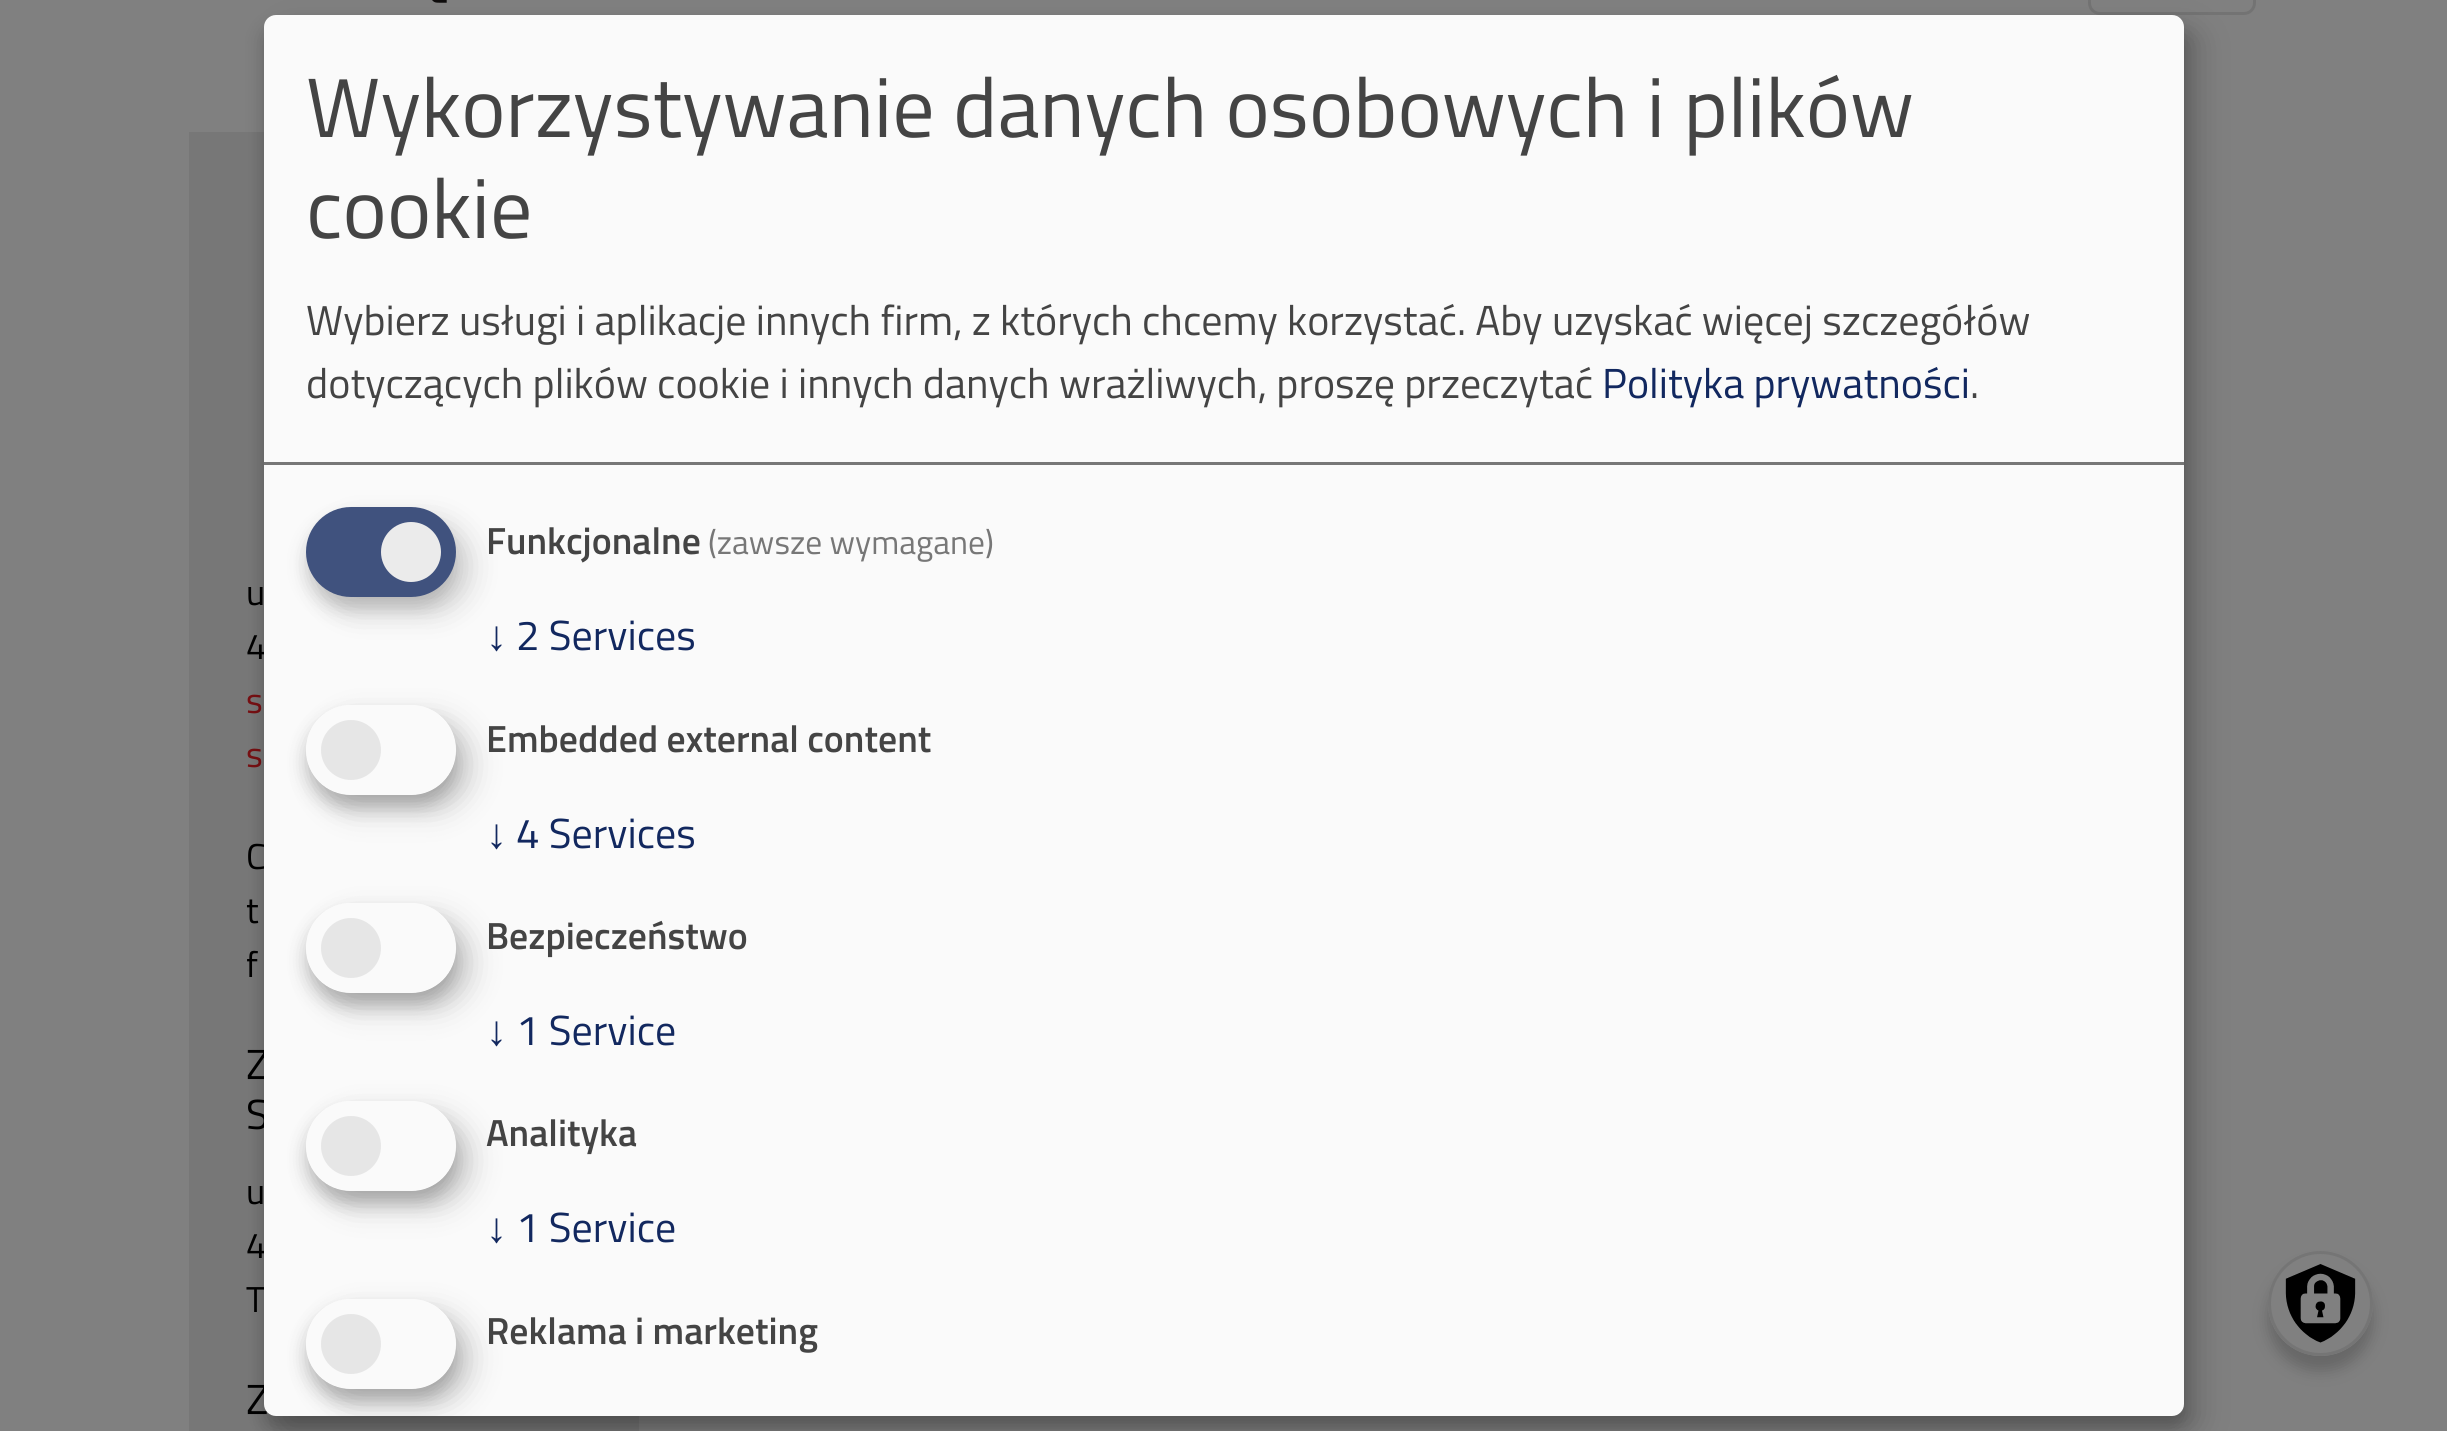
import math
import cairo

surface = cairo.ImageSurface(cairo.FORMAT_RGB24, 2447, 1431)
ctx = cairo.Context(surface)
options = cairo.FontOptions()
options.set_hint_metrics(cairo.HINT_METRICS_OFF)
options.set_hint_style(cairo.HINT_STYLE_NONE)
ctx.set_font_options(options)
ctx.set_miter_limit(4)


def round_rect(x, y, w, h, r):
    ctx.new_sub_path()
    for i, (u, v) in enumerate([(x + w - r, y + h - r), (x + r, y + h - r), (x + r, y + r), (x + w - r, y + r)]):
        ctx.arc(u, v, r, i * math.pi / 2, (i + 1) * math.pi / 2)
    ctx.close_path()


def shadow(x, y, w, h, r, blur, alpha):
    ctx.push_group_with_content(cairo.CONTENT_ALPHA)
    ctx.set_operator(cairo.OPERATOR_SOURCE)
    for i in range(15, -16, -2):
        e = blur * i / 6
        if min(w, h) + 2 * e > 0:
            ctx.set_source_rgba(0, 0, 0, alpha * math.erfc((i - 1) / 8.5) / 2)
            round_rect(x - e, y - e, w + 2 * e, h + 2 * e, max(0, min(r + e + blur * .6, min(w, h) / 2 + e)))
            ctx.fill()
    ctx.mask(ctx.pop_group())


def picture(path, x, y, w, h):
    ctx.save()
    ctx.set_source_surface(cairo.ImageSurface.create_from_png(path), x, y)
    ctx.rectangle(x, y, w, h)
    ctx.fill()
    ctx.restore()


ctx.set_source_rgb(0.502, 0.502, 0.502)
ctx.paint()
picture("img1.png", 432, 0, 15, 3)
round_rect(2089.5, -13.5, 165, 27, 10.5)
ctx.set_source_rgb(0.451, 0.451, 0.451)
ctx.set_line_width(3)
ctx.stroke()
ctx.set_source_rgb(0.467, 0.467, 0.467)
ctx.rectangle(189, 132, 450, 1299)
ctx.fill()
ctx.select_font_face("Titillium Web")
ctx.set_font_size(36)
ctx.set_source_rgb(0, 0, 0)
ctx.move_to(246, 605)
ctx.show_text("u")
ctx.move_to(246, 659)
ctx.show_text("4")
ctx.set_source_rgb(0.467, 0.059, 0.071)
ctx.move_to(246, 713)
ctx.show_text("s")
ctx.move_to(246, 767)
ctx.show_text("s")
ctx.set_source_rgb(0, 0, 0)
ctx.move_to(246, 869)
ctx.show_text("C")
ctx.move_to(246, 923)
ctx.show_text("t")
ctx.move_to(246, 977)
ctx.show_text("f")
ctx.set_font_size(42)
ctx.move_to(246, 1079)
ctx.show_text("Z")
ctx.move_to(246, 1129)
ctx.show_text("S")
ctx.set_font_size(36)
ctx.move_to(246, 1204)
ctx.show_text("u")
ctx.move_to(246, 1258)
ctx.show_text("4")
ctx.move_to(246, 1312)
ctx.show_text("T")
ctx.set_font_size(42)
ctx.move_to(246, 1414)
ctx.show_text("Z")
ctx.set_source_rgb(0, 0, 0)
shadow(279, 30, 1920, 1401, 12, 15, 0.19)
shadow(264, 27, 1920, 1401, 12, 9, 0.2)
ctx.set_source_rgb(0.98, 0.98, 0.98)
round_rect(264, 15, 1920, 1401, 12)
ctx.fill()
ctx.set_source_rgb(0.467, 0.467, 0.467)
ctx.rectangle(264, 462, 1920, 3)
ctx.fill()
ctx.set_font_size(84)
ctx.set_source_rgb(0.267, 0.267, 0.267)
ctx.move_to(306, 137)
ctx.show_text("Wykorzystywanie danych osobowych i plików")
ctx.move_to(306, 238)
ctx.show_text("cookie")
ctx.set_font_size(42)
ctx.move_to(306, 335)
ctx.show_text("Wybierz usługi i aplikacje innych firm, z których chcemy korzystać. Aby uzyskać więcej szczegółów")
ctx.move_to(306, 398)
ctx.show_text("dotyczących plików cookie i innych danych wrażliwych, proszę przeczytać")
ctx.set_source_rgb(0.071, 0.157, 0.373)
ctx.move_to(1602, 398)
ctx.show_text("Polityka prywatności")
ctx.set_source_rgb(0.267, 0.267, 0.267)
ctx.move_to(1970, 398)
ctx.show_text(".")
ctx.set_source_rgb(0, 0, 0)
shadow(321, 522, 150, 90, 45, 15, 0.15)
ctx.set_source_rgb(0.196, 0.196, 0.196)
shadow(306, 519, 150, 90, 45, 9, 0.2)
ctx.set_source_rgb(0.251, 0.322, 0.494)
round_rect(306, 507, 150, 90, 45)
ctx.fill()
ctx.set_source_rgb(0.918, 0.918, 0.918)
ctx.arc(411, 552, 30, 0, 2 * math.pi)
ctx.fill()
ctx.select_font_face("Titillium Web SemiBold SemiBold")
ctx.set_font_size(37.75)
ctx.set_source_rgb(0.267, 0.267, 0.267)
ctx.move_to(486, 554)
ctx.show_text("Funkcjonalne")
ctx.select_font_face("Titillium Web")
ctx.set_font_size(33.5)
ctx.set_source_rgb(0.467, 0.467, 0.467)
ctx.move_to(708, 554)
ctx.show_text("(zawsze wymagane)")
ctx.select_font_face("Liberation Sans")
ctx.set_font_size(42)
ctx.set_source_rgb(0.071, 0.157, 0.373)
ctx.move_to(486, 650)
ctx.show_text("↓")
ctx.select_font_face("Titillium Web")
ctx.move_to(516, 650)
ctx.show_text("2 Services")
ctx.save()
ctx.set_fill_rule(cairo.FILL_RULE_EVEN_ODD)
ctx.new_path()
ctx.move_to(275, 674)
ctx.line_to(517, 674)
ctx.line_to(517, 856)
ctx.line_to(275, 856)
ctx.close_path()
ctx.move_to(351, 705)
ctx.line_to(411, 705)
ctx.curve_to(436, 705, 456, 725, 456, 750)
ctx.curve_to(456, 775, 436, 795, 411, 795)
ctx.line_to(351, 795)
ctx.curve_to(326, 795, 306, 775, 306, 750)
ctx.curve_to(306, 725, 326, 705, 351, 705)
ctx.close_path()
ctx.clip()
ctx.set_source_rgb(0, 0, 0)
shadow(321, 720, 150, 90, 45, 15, 0.19)
ctx.restore()
ctx.save()
ctx.set_fill_rule(cairo.FILL_RULE_EVEN_ODD)
ctx.new_path()
ctx.move_to(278, 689)
ctx.line_to(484, 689)
ctx.line_to(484, 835)
ctx.line_to(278, 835)
ctx.close_path()
ctx.move_to(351, 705)
ctx.line_to(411, 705)
ctx.curve_to(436, 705, 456, 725, 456, 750)
ctx.curve_to(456, 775, 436, 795, 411, 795)
ctx.line_to(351, 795)
ctx.curve_to(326, 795, 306, 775, 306, 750)
ctx.curve_to(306, 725, 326, 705, 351, 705)
ctx.close_path()
ctx.clip()
ctx.set_source_rgb(0, 0, 0)
shadow(306, 717, 150, 90, 45, 9, 0.2)
ctx.restore()
ctx.set_source_rgb(0.902, 0.902, 0.902)
ctx.arc(351, 750, 30, 0, 2 * math.pi)
ctx.fill()
ctx.select_font_face("Titillium Web SemiBold SemiBold")
ctx.set_font_size(37.75)
ctx.set_source_rgb(0.267, 0.267, 0.267)
ctx.move_to(486, 752)
ctx.show_text("Embedded external content")
ctx.select_font_face("Liberation Sans")
ctx.set_font_size(42)
ctx.set_source_rgb(0.071, 0.157, 0.373)
ctx.move_to(486, 848)
ctx.show_text("↓")
ctx.select_font_face("Titillium Web")
ctx.move_to(516, 848)
ctx.show_text("4 Services")
ctx.save()
ctx.set_fill_rule(cairo.FILL_RULE_EVEN_ODD)
ctx.new_path()
ctx.move_to(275, 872)
ctx.line_to(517, 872)
ctx.line_to(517, 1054)
ctx.line_to(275, 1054)
ctx.close_path()
ctx.move_to(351, 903)
ctx.line_to(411, 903)
ctx.curve_to(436, 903, 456, 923, 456, 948)
ctx.curve_to(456, 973, 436, 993, 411, 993)
ctx.line_to(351, 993)
ctx.curve_to(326, 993, 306, 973, 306, 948)
ctx.curve_to(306, 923, 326, 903, 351, 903)
ctx.close_path()
ctx.clip()
ctx.set_source_rgb(0, 0, 0)
shadow(321, 918, 150, 90, 45, 15, 0.19)
ctx.restore()
ctx.save()
ctx.set_fill_rule(cairo.FILL_RULE_EVEN_ODD)
ctx.new_path()
ctx.move_to(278, 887)
ctx.line_to(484, 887)
ctx.line_to(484, 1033)
ctx.line_to(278, 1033)
ctx.close_path()
ctx.move_to(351, 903)
ctx.line_to(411, 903)
ctx.curve_to(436, 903, 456, 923, 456, 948)
ctx.curve_to(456, 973, 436, 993, 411, 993)
ctx.line_to(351, 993)
ctx.curve_to(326, 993, 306, 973, 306, 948)
ctx.curve_to(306, 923, 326, 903, 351, 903)
ctx.close_path()
ctx.clip()
ctx.set_source_rgb(0, 0, 0)
shadow(306, 915, 150, 90, 45, 9, 0.2)
ctx.restore()
ctx.set_source_rgb(0.902, 0.902, 0.902)
ctx.arc(351, 948, 30, 0, 2 * math.pi)
ctx.fill()
ctx.select_font_face("Titillium Web SemiBold SemiBold")
ctx.set_font_size(37.75)
ctx.set_source_rgb(0.267, 0.267, 0.267)
ctx.move_to(486, 949)
ctx.show_text("Bezpieczeństwo")
ctx.select_font_face("Liberation Sans")
ctx.set_font_size(42)
ctx.set_source_rgb(0.071, 0.157, 0.373)
ctx.move_to(486, 1045)
ctx.show_text("↓")
ctx.select_font_face("Titillium Web")
ctx.move_to(516, 1045)
ctx.show_text("1 Service")
ctx.save()
ctx.set_fill_rule(cairo.FILL_RULE_EVEN_ODD)
ctx.new_path()
ctx.move_to(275, 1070)
ctx.line_to(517, 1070)
ctx.line_to(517, 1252)
ctx.line_to(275, 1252)
ctx.close_path()
ctx.move_to(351, 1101)
ctx.line_to(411, 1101)
ctx.curve_to(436, 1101, 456, 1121, 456, 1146)
ctx.curve_to(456, 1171, 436, 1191, 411, 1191)
ctx.line_to(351, 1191)
ctx.curve_to(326, 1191, 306, 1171, 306, 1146)
ctx.curve_to(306, 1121, 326, 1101, 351, 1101)
ctx.close_path()
ctx.clip()
ctx.set_source_rgb(0, 0, 0)
shadow(321, 1116, 150, 90, 45, 15, 0.19)
ctx.restore()
ctx.save()
ctx.set_fill_rule(cairo.FILL_RULE_EVEN_ODD)
ctx.new_path()
ctx.move_to(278, 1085)
ctx.line_to(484, 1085)
ctx.line_to(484, 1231)
ctx.line_to(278, 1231)
ctx.close_path()
ctx.move_to(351, 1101)
ctx.line_to(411, 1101)
ctx.curve_to(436, 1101, 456, 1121, 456, 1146)
ctx.curve_to(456, 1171, 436, 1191, 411, 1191)
ctx.line_to(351, 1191)
ctx.curve_to(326, 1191, 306, 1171, 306, 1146)
ctx.curve_to(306, 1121, 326, 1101, 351, 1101)
ctx.close_path()
ctx.clip()
ctx.set_source_rgb(0, 0, 0)
shadow(306, 1113, 150, 90, 45, 9, 0.2)
ctx.restore()
ctx.set_source_rgb(0.902, 0.902, 0.902)
ctx.arc(351, 1146, 30, 0, 2 * math.pi)
ctx.fill()
ctx.select_font_face("Titillium Web SemiBold SemiBold")
ctx.set_font_size(37.75)
ctx.set_source_rgb(0.267, 0.267, 0.267)
ctx.move_to(486, 1146)
ctx.show_text("Analityka")
ctx.select_font_face("Liberation Sans")
ctx.set_font_size(42)
ctx.set_source_rgb(0.071, 0.157, 0.373)
ctx.move_to(486, 1242)
ctx.show_text("↓")
ctx.select_font_face("Titillium Web")
ctx.move_to(516, 1242)
ctx.show_text("1 Service")
ctx.save()
round_rect(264, 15, 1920, 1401, 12)
ctx.clip()
ctx.set_fill_rule(cairo.FILL_RULE_EVEN_ODD)
ctx.new_path()
ctx.move_to(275, 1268)
ctx.line_to(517, 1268)
ctx.line_to(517, 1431)
ctx.line_to(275, 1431)
ctx.close_path()
ctx.move_to(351, 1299)
ctx.line_to(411, 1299)
ctx.curve_to(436, 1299, 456, 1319, 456, 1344)
ctx.curve_to(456, 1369, 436, 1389, 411, 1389)
ctx.line_to(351, 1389)
ctx.curve_to(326, 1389, 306, 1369, 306, 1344)
ctx.curve_to(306, 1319, 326, 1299, 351, 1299)
ctx.close_path()
ctx.clip()
ctx.set_source_rgb(0, 0, 0)
shadow(321, 1314, 150, 90, 45, 15, 0.19)
ctx.restore()
ctx.save()
ctx.set_fill_rule(cairo.FILL_RULE_EVEN_ODD)
ctx.new_path()
ctx.move_to(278, 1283)
ctx.line_to(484, 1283)
ctx.line_to(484, 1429)
ctx.line_to(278, 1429)
ctx.close_path()
ctx.move_to(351, 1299)
ctx.line_to(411, 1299)
ctx.curve_to(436, 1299, 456, 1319, 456, 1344)
ctx.curve_to(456, 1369, 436, 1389, 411, 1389)
ctx.line_to(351, 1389)
ctx.curve_to(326, 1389, 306, 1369, 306, 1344)
ctx.curve_to(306, 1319, 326, 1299, 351, 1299)
ctx.close_path()
ctx.clip()
ctx.set_source_rgb(0, 0, 0)
shadow(306, 1311, 150, 90, 45, 9, 0.2)
ctx.restore()
ctx.set_source_rgb(0.902, 0.902, 0.902)
ctx.arc(351, 1344, 30, 0, 2 * math.pi)
ctx.fill()
ctx.select_font_face("Titillium Web SemiBold SemiBold")
ctx.set_font_size(37.75)
ctx.set_source_rgb(0.267, 0.267, 0.267)
ctx.move_to(486, 1344)
ctx.show_text("Reklama i marketing")
ctx.set_source_rgb(0, 0, 0)
shadow(2268, 1266, 105, 105, 52.5, 7.5, 0.2)
ctx.set_source_rgb(0.502, 0.502, 0.502)
ctx.arc(2320.5, 1303.5, 52.5, 0, 2 * math.pi)
ctx.fill()
picture("img2.png", 2285, 1264, 71, 79)
ctx.arc(2320.5, 1303.5, 51, 0, 2 * math.pi)
ctx.set_source_rgb(0.459, 0.459, 0.459)
ctx.stroke()
surface.write_to_png("page.png")
